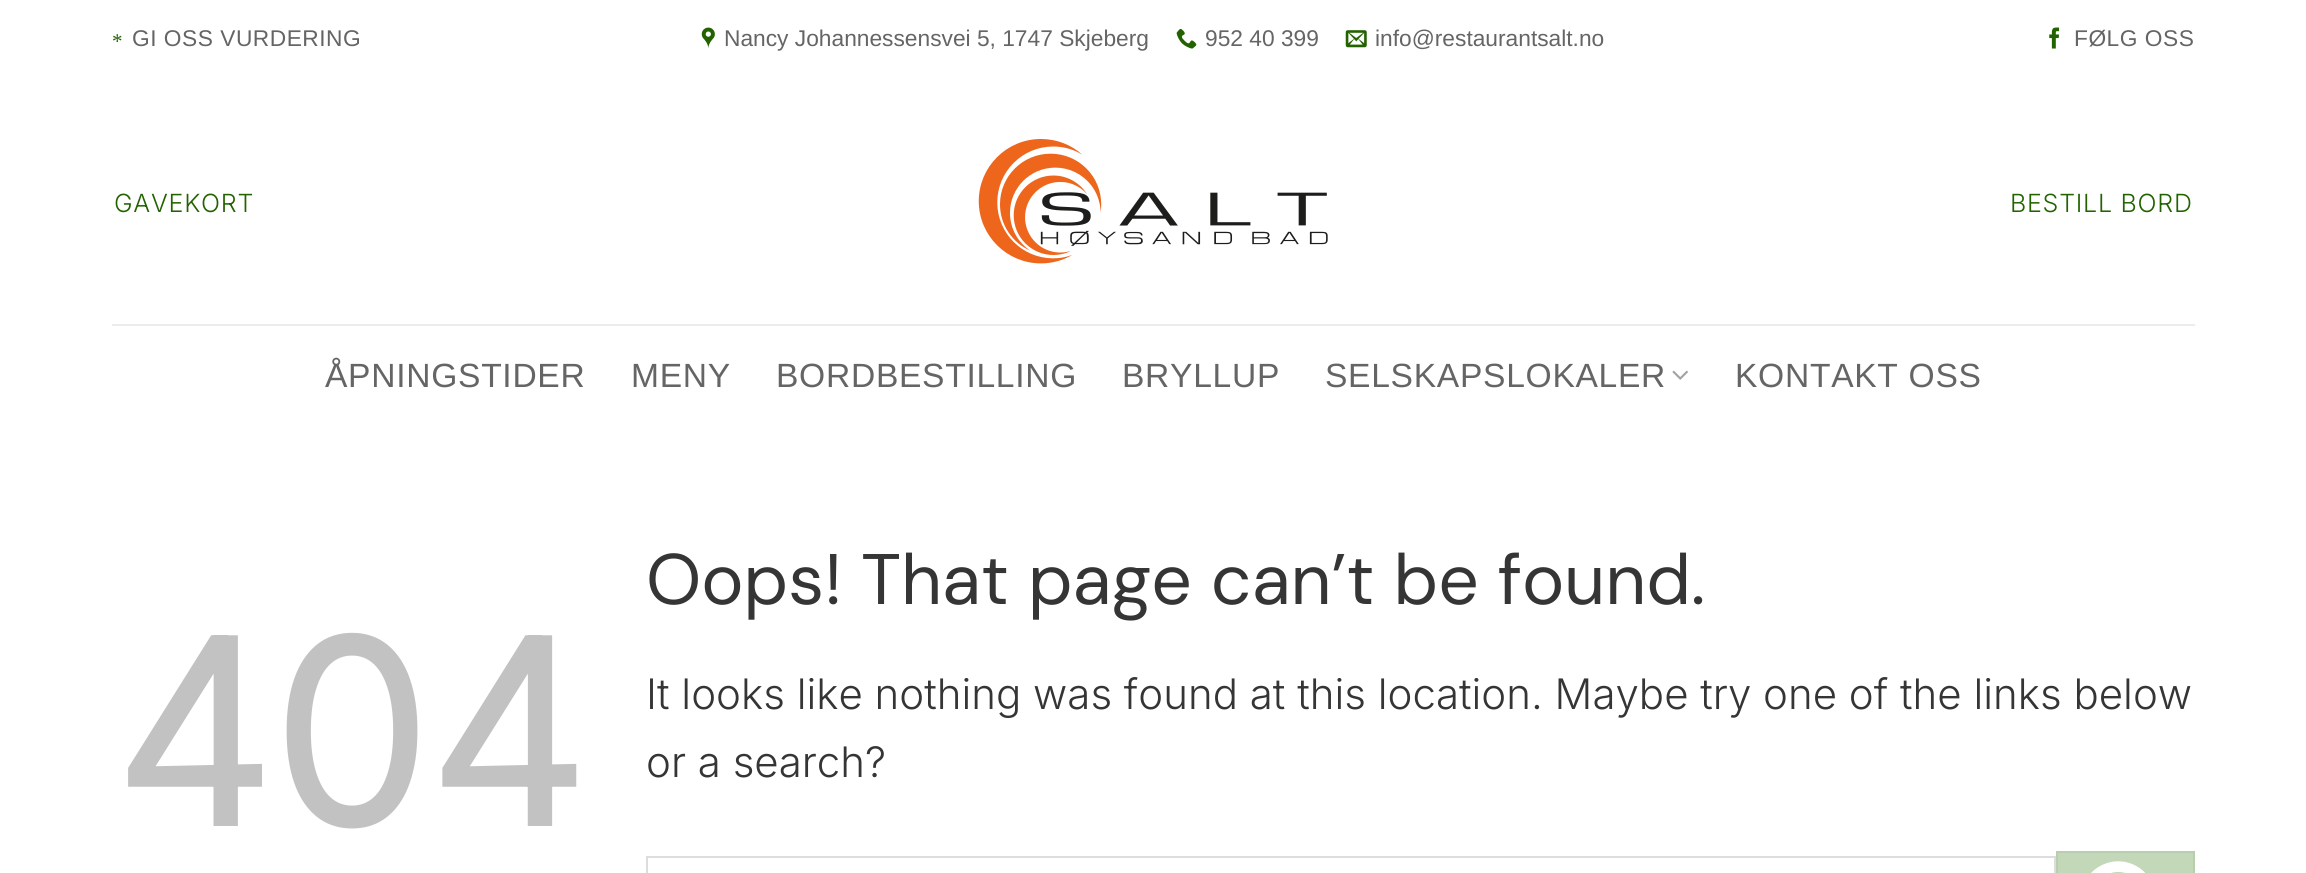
import math
import cairo

surface = cairo.ImageSurface(cairo.FORMAT_RGB24, 2306, 873)
ctx = cairo.Context(surface)
options = cairo.FontOptions()
options.set_hint_metrics(cairo.HINT_METRICS_OFF)
options.set_hint_style(cairo.HINT_STYLE_NONE)
ctx.set_font_options(options)
ctx.set_miter_limit(4)


def spaced_text(x, y, s, letter, word):
    ctx.move_to(x, y)
    for ch in s:
        ctx.show_text(ch)
        ctx.rel_move_to(letter + word * (ch == ' '), 0)


def picture(path, x, y, w, h):
    ctx.save()
    ctx.set_source_surface(cairo.ImageSurface.create_from_png(path), x, y)
    ctx.rectangle(x, y, w, h)
    ctx.fill()
    ctx.restore()


ctx.set_source_rgb(1, 1, 1)
ctx.paint()
ctx.select_font_face("Liberation Serif")
ctx.set_font_size(21)
ctx.set_source_rgb(0.133, 0.388, 0)
spaced_text(112, 48, "*", 0.5, 0)
ctx.select_font_face("Liberation Sans")
ctx.set_font_size(22.75)
ctx.set_source_rgb(0.396, 0.396, 0.396)
spaced_text(132, 46, "GI OSS VURDERING", 0.5, 0)
picture("img1.png", 701, 27, 14, 22)
ctx.move_to(724, 46)
ctx.show_text("Nancy Johannessensvei 5, 1747 Skjeberg")
picture("img2.png", 1176, 28, 21, 21)
ctx.move_to(1205, 46)
ctx.show_text("952 40 399")
picture("img3.png", 1345, 30, 22, 18)
ctx.move_to(1375, 46)
ctx.show_text("info@restaurantsalt.no")
picture("img4.png", 2049, 27, 11, 22)
spaced_text(2074, 46, "FØLG OSS", 0.5, 0)
ctx.select_font_face("Inter Light")
ctx.set_font_size(25)
ctx.set_source_rgb(0.133, 0.388, 0)
spaced_text(114, 212, "GAVEKORT", 0.75, 0)
picture("img5.png", 978, 139, 350, 125)
spaced_text(2010, 212, "BESTILL BORD", 0.75, 0)
ctx.set_source_rgb(0.922, 0.922, 0.922)
ctx.rectangle(112, 324, 2083, 2)
ctx.fill()
ctx.select_font_face("Liberation Sans")
ctx.set_font_size(33.6)
ctx.set_source_rgb(0.396, 0.396, 0.396)
spaced_text(325, 387, "ÅPNINGSTIDER", 0.7, 0)
spaced_text(631, 387, "MENY", 0.7, 0)
spaced_text(776, 387, "BORDBESTILLING", 0.7, 0)
spaced_text(1122, 387, "BRYLLUP", 0.7, 0)
spaced_text(1325, 387, "SELSKAPSLOKALER", 0.7, 0)
picture("img6.png", 1672, 370, 16, 10)
spaced_text(1735, 387, "KONTAKT OSS", 0.7, 0)
ctx.select_font_face("Inter", cairo.FONT_SLANT_NORMAL, cairo.FONT_WEIGHT_BOLD)
ctx.set_font_size(252)
ctx.set_source_rgb(0.761, 0.761, 0.761)
ctx.move_to(112, 826)
ctx.show_text("404")
ctx.select_font_face("DM Sans")
ctx.set_font_size(71.4)
ctx.set_source_rgb(0.208, 0.208, 0.208)
ctx.move_to(646, 604)
ctx.show_text("Oops! That page can’t be found.")
ctx.select_font_face("Inter Light")
ctx.set_font_size(42)
ctx.move_to(646, 709)
ctx.show_text("It looks like nothing was found at this location. Maybe try one of the links below")
ctx.move_to(646, 777)
ctx.show_text("or a search?")
ctx.rectangle(647, 857, 1408, 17)
ctx.set_source_rgb(0.867, 0.867, 0.867)
ctx.stroke()
ctx.set_source_rgb(0.765, 0.847, 0.722)
ctx.rectangle(2057, 852, 137, 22)
ctx.fill_preserve()
ctx.set_source_rgb(0.725, 0.804, 0.686)
ctx.stroke()
picture("img7.png", 2091, 861, 54, 12)
surface.write_to_png("page.png")
